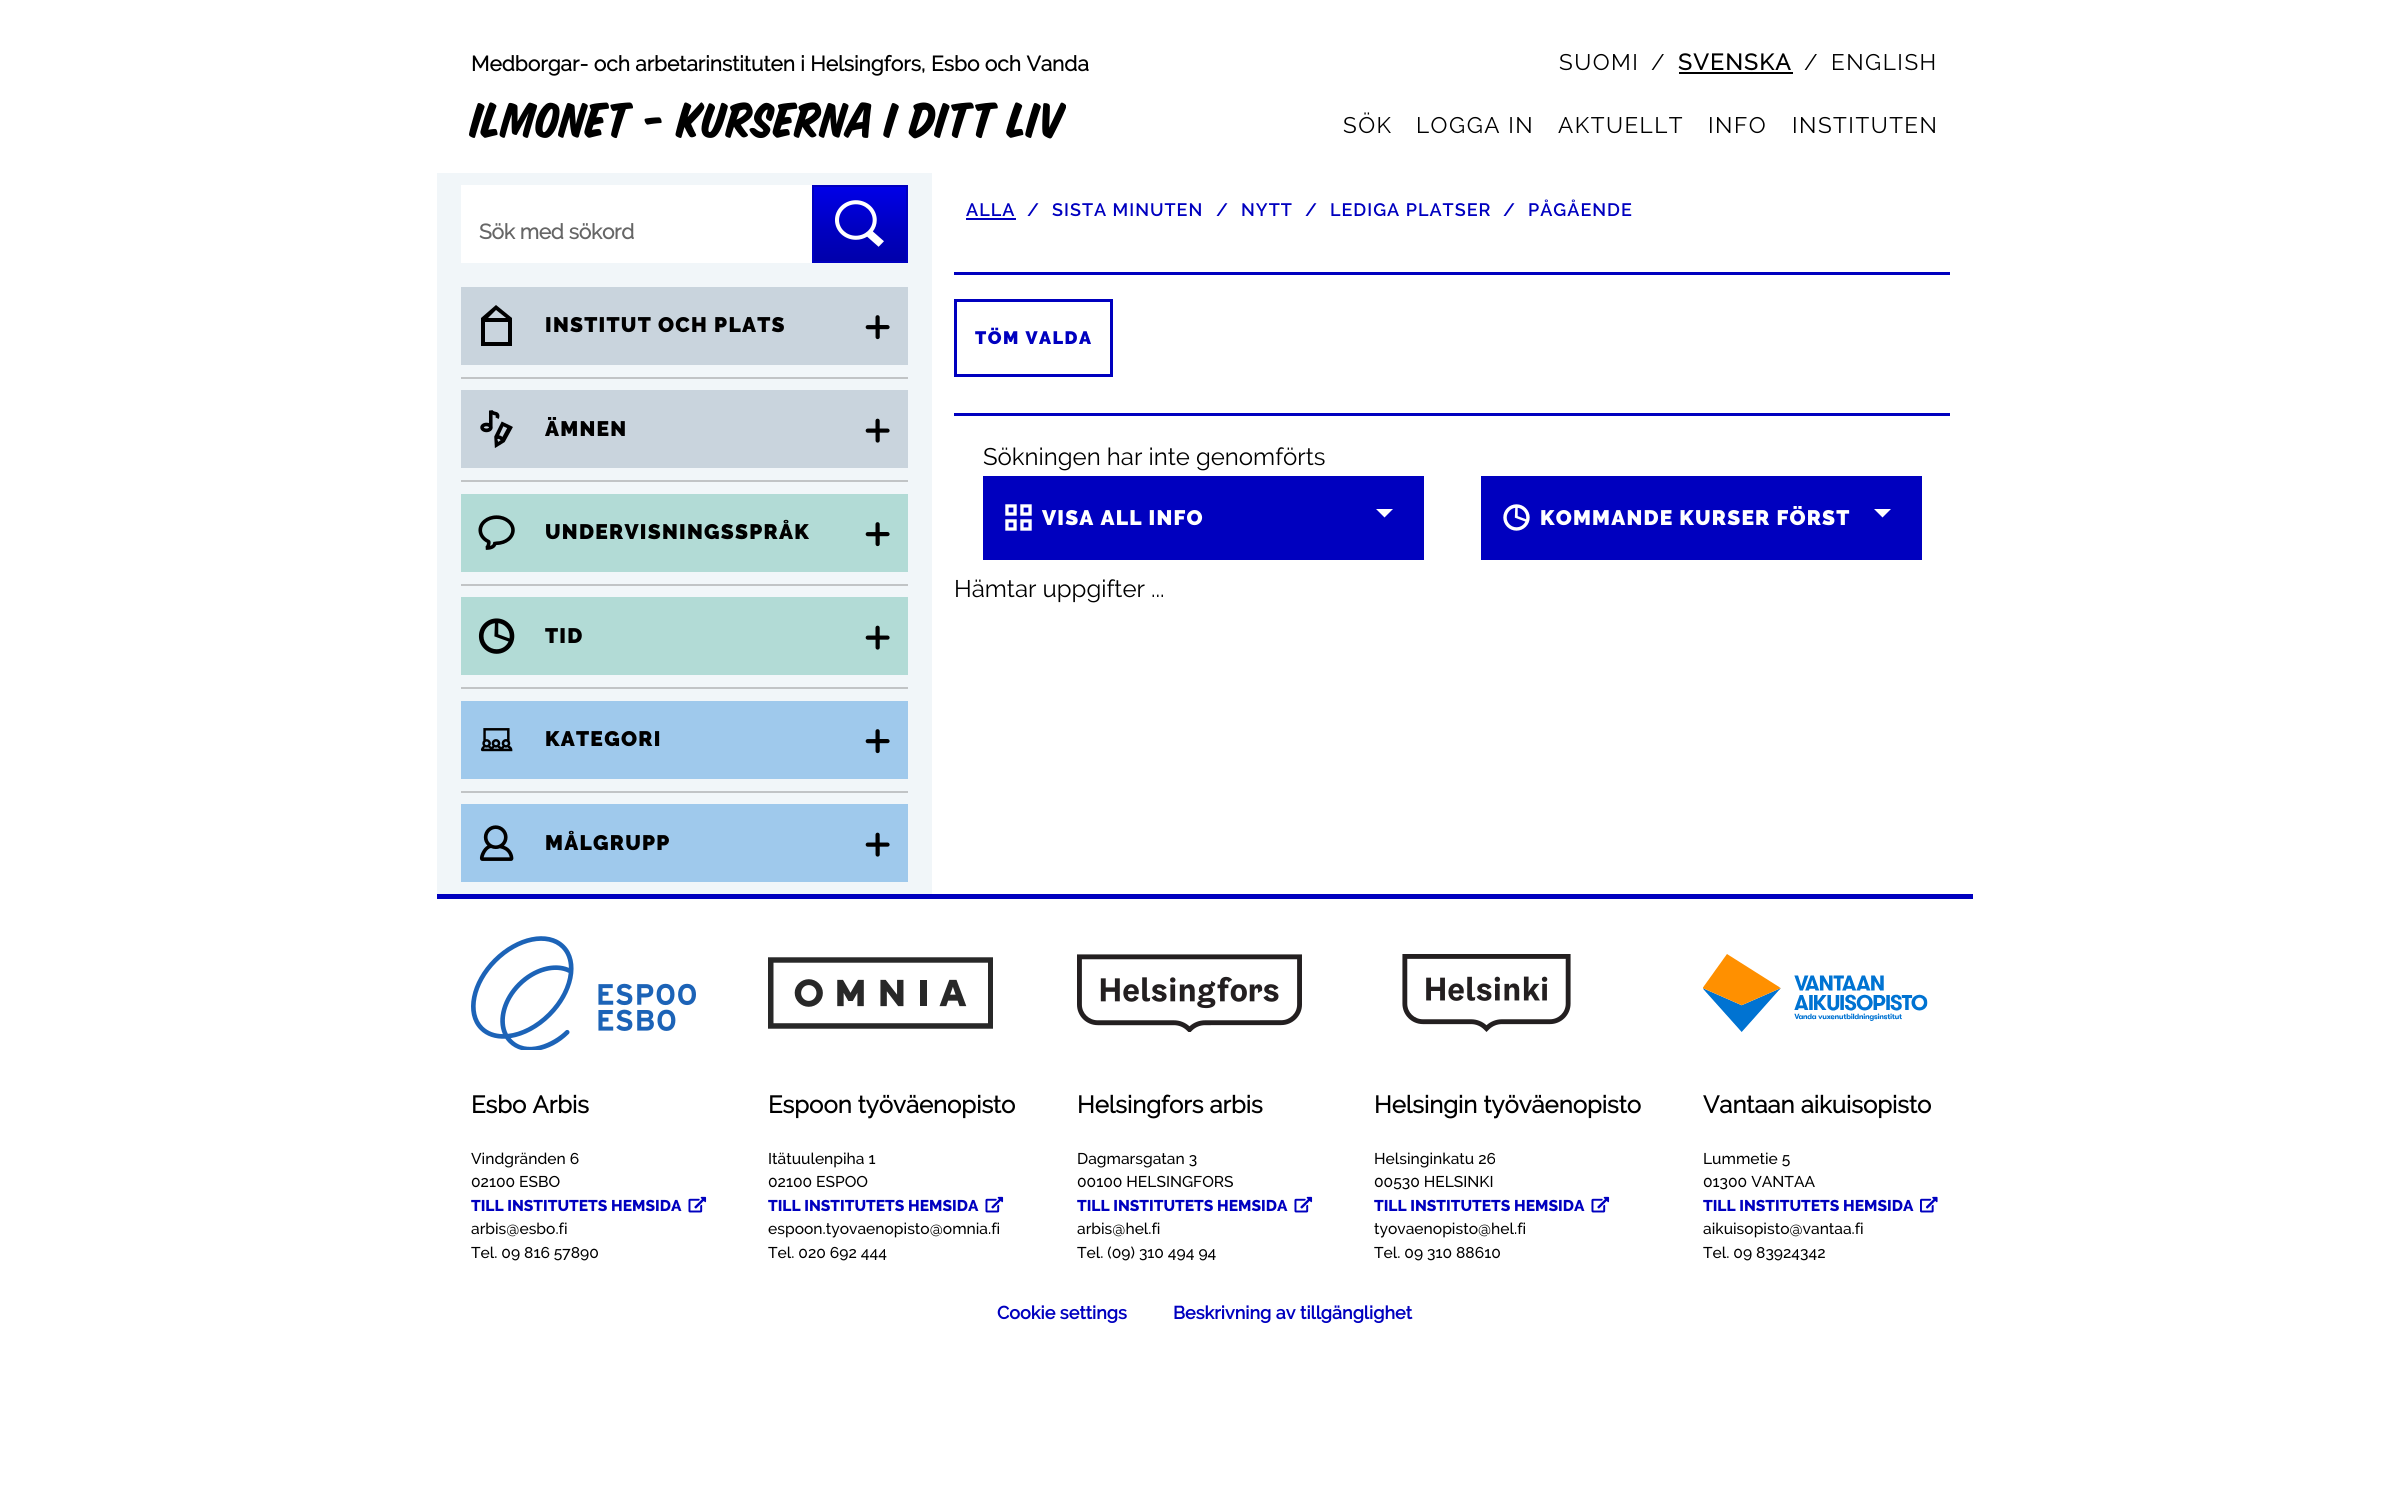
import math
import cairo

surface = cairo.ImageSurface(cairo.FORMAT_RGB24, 2408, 1485)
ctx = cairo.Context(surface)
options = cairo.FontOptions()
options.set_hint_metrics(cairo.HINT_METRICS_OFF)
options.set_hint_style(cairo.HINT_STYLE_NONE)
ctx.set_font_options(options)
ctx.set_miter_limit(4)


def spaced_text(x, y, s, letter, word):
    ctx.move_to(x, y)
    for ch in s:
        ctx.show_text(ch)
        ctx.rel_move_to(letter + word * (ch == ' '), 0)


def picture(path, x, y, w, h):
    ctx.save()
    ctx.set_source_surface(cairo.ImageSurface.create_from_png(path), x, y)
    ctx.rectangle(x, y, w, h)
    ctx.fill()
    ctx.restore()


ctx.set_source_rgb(1, 1, 1)
ctx.paint()
ctx.select_font_face("Raleway", cairo.FONT_SLANT_NORMAL, cairo.FONT_WEIGHT_BOLD)
ctx.set_font_size(21)
ctx.set_source_rgb(0, 0, 0)
ctx.move_to(471, 71)
ctx.show_text("Medborgar- och arbetarinstituten i Helsingfors, Esbo och Vanda")
ctx.select_font_face("Raleway")
ctx.set_font_size(22.5)
spaced_text(1559, 70, "SUOMI", 1.5, 0)
spaced_text(1651, 70, "/", 1.5, 0)
ctx.select_font_face("Raleway", cairo.FONT_SLANT_NORMAL, cairo.FONT_WEIGHT_BOLD)
spaced_text(1678, 70, "SVENSKA", 1.5, 0)
ctx.rectangle(1679, 72, 114, 2)
ctx.fill()
ctx.select_font_face("Raleway")
spaced_text(1804, 70, "/", 1.5, 0)
spaced_text(1831, 70, "ENGLISH", 1.5, 0)
ctx.select_font_face("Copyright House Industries")
ctx.set_font_size(54)
ctx.move_to(471, 137)
ctx.show_text("ILMONET - KURSERNA I DITT LIV")
ctx.select_font_face("Raleway")
ctx.set_font_size(22.5)
spaced_text(1343, 133, "SÖK", 1.5, 0)
spaced_text(1416, 133, "LOGGA IN", 1.5, 0)
spaced_text(1558, 133, "AKTUELLT", 1.5, 0)
spaced_text(1708, 133, "INFO", 1.5, 0)
spaced_text(1792, 133, "INSTITUTEN", 1.5, 0)
ctx.set_source_rgb(0.945, 0.961, 0.973)
ctx.rectangle(437, 173, 495, 721)
ctx.fill()
ctx.set_source_rgb(1, 1, 1)
ctx.rectangle(461, 185, 351, 78)
ctx.fill()
ctx.select_font_face("Raleway", cairo.FONT_SLANT_NORMAL, cairo.FONT_WEIGHT_BOLD)
ctx.set_font_size(21)
ctx.set_source_rgb(0.4, 0.4, 0.4)
spaced_text(479, 239, "Sök med sökord", -0.25, 0)
gradient = cairo.LinearGradient(860, 186, 860, 261)
gradient.add_color_stop_rgba(0, 0, 0, 0.91, 1)
gradient.add_color_stop_rgba(0.6, 0, 0, 0.749, 1)
gradient.add_color_stop_rgba(1, 0, 0, 0.671, 1)
ctx.set_source(gradient)
ctx.rectangle(814, 187, 92, 74)
ctx.fill()
ctx.rectangle(813, 186, 94, 76)
ctx.set_source_rgb(0, 0, 0.749)
ctx.stroke()
picture("img1.png", 835, 200, 49, 47)
ctx.set_source_rgb(0.788, 0.831, 0.867)
ctx.rectangle(461, 287, 447, 78)
ctx.fill()
ctx.set_source_rgb(0, 0, 0)
ctx.new_path()
ctx.move_to(512, 318)
ctx.line_to(496, 305)
ctx.line_to(481, 318)
ctx.line_to(481, 346)
ctx.line_to(512, 346)
ctx.close_path()
ctx.move_to(496, 310)
ctx.line_to(506, 318)
ctx.line_to(488, 318)
ctx.close_path()
ctx.move_to(508, 342)
ctx.line_to(485, 342)
ctx.line_to(485, 322)
ctx.line_to(508, 322)
ctx.close_path()
ctx.fill()
ctx.select_font_face("Raleway Black")
spaced_text(545, 332, "INSTITUT OCH PLATS", 1.25, 0)
picture("img2.png", 865, 315, 25, 25)
ctx.set_source_rgb(0.757, 0.769, 0.776)
ctx.rectangle(461, 377, 447, 2)
ctx.fill()
ctx.set_source_rgb(0.788, 0.831, 0.867)
ctx.rectangle(461, 390, 447, 78)
ctx.fill()
picture("img3.png", 480, 410, 33, 38)
ctx.set_source_rgb(0, 0, 0)
spaced_text(545, 436, "ÄMNEN", 1.25, 0)
picture("img4.png", 865, 418, 25, 25)
ctx.set_source_rgb(0.757, 0.769, 0.776)
ctx.rectangle(461, 480, 447, 2)
ctx.fill()
ctx.set_source_rgb(0.698, 0.859, 0.839)
ctx.rectangle(461, 494, 447, 78)
ctx.fill()
picture("img5.png", 478, 515, 37, 35)
ctx.set_source_rgb(0, 0, 0)
spaced_text(545, 539, "UNDERVISNINGSSPRÅK", 1.25, 0)
picture("img6.png", 865, 522, 25, 25)
ctx.set_source_rgb(0.757, 0.769, 0.776)
ctx.rectangle(461, 584, 447, 2)
ctx.fill()
ctx.set_source_rgb(0.698, 0.859, 0.839)
ctx.rectangle(461, 597, 447, 78)
ctx.fill()
picture("img7.png", 478, 618, 37, 36)
ctx.set_source_rgb(0, 0, 0)
spaced_text(545, 643, "TID", 1.25, 0)
picture("img8.png", 865, 625, 25, 25)
ctx.set_source_rgb(0.757, 0.769, 0.776)
ctx.rectangle(461, 687, 447, 2)
ctx.fill()
ctx.set_source_rgb(0.624, 0.788, 0.922)
ctx.rectangle(461, 701, 447, 78)
ctx.fill()
picture("img9.png", 480, 728, 33, 24)
ctx.set_source_rgb(0, 0, 0)
spaced_text(545, 746, "KATEGORI", 1.25, 0)
picture("img10.png", 865, 729, 25, 25)
ctx.set_source_rgb(0.757, 0.769, 0.776)
ctx.rectangle(461, 791, 447, 2)
ctx.fill()
ctx.set_source_rgb(0.624, 0.788, 0.922)
ctx.rectangle(461, 804, 447, 78)
ctx.fill()
picture("img11.png", 479, 825, 35, 36)
ctx.set_source_rgb(0, 0, 0)
spaced_text(545, 850, "MÅLGRUPP", 1.25, 0)
picture("img12.png", 865, 832, 25, 25)
ctx.select_font_face("Raleway SemiBold")
ctx.set_font_size(18)
ctx.set_source_rgb(0, 0, 0.749)
spaced_text(966, 216, "ALLA", 1, 0)
ctx.rectangle(966, 218, 50, 2)
ctx.fill()
spaced_text(1027, 216, "/", 1, 0)
spaced_text(1052, 216, "SISTA MINUTEN", 1, 0)
spaced_text(1216, 216, "/", 1, 0)
spaced_text(1241, 216, "NYTT", 1, 0)
spaced_text(1305, 216, "/", 1, 0)
spaced_text(1330, 216, "LEDIGA PLATSER", 1, 0)
spaced_text(1503, 216, "/", 1, 0)
spaced_text(1528, 216, "PÅGÅENDE", 1, 0)
ctx.rectangle(954, 272, 996, 3)
ctx.fill()
ctx.rectangle(955.5, 300.5, 156, 75)
ctx.set_line_width(3)
ctx.stroke()
ctx.select_font_face("Raleway Black")
spaced_text(975, 344, "TÖM VALDA", 1.5, 0)
ctx.rectangle(954, 413, 996, 3)
ctx.fill()
ctx.select_font_face("Raleway")
ctx.set_font_size(24)
ctx.set_source_rgb(0, 0, 0)
ctx.move_to(983, 465)
ctx.show_text("Sökningen har inte genomförts")
ctx.set_source_rgb(0, 0, 0.749)
ctx.rectangle(983, 476, 441, 84)
ctx.fill()
ctx.save()
ctx.rectangle(1376, 509, 18, 18)
ctx.clip()
ctx.set_source_rgb(1, 1, 1)
ctx.new_path()
ctx.move_to(1375.5, 508.5)
ctx.line_to(1393.5, 508.5)
ctx.line_to(1384.5, 517.5)
ctx.close_path()
ctx.fill()
ctx.restore()
picture("img13.png", 1005, 504, 27, 27)
ctx.select_font_face("Raleway Black")
ctx.set_font_size(21)
ctx.set_source_rgb(1, 1, 1)
spaced_text(1042, 525, "VISA ALL INFO", 1.2, 0)
ctx.set_source_rgb(0, 0, 0.749)
ctx.rectangle(1481, 476, 441, 84)
ctx.fill()
ctx.save()
ctx.rectangle(1874, 509, 18, 18)
ctx.clip()
ctx.set_source_rgb(1, 1, 1)
ctx.new_path()
ctx.move_to(1873.5, 508.5)
ctx.line_to(1891.5, 508.5)
ctx.line_to(1882.5, 517.5)
ctx.close_path()
ctx.fill()
ctx.restore()
picture("img14.png", 1503, 504, 27, 27)
ctx.set_source_rgb(1, 1, 1)
spaced_text(1540, 525, "KOMMANDE KURSER FÖRST", 1.2, 0)
ctx.select_font_face("Raleway")
ctx.set_font_size(24)
ctx.set_source_rgb(0, 0, 0)
ctx.move_to(954, 597)
ctx.show_text("Hämtar uppgifter ...")
ctx.set_source_rgb(0, 0, 0.749)
ctx.rectangle(437, 894, 1536, 5)
ctx.fill()
picture("img15.png", 471, 936, 225, 114)
ctx.select_font_face("Raleway", cairo.FONT_SLANT_NORMAL, cairo.FONT_WEIGHT_BOLD)
ctx.set_source_rgb(0, 0, 0)
ctx.move_to(471, 1113)
ctx.show_text("Esbo Arbis")
ctx.select_font_face("Raleway Medium")
ctx.set_font_size(15.6)
ctx.move_to(471, 1164)
ctx.show_text("Vindgränden 6")
ctx.move_to(471, 1187)
ctx.show_text("02100 ESBO")
ctx.select_font_face("Raleway ExtraBold")
ctx.set_source_rgb(0, 0, 0.749)
ctx.move_to(471, 1211)
ctx.show_text("TILL INSTITUTETS HEMSIDA")
picture("img16.png", 688, 1196, 19, 17)
ctx.select_font_face("Raleway Medium")
ctx.set_source_rgb(0, 0, 0)
ctx.move_to(471, 1234)
ctx.show_text("arbis@esbo.fi")
ctx.move_to(471, 1258)
ctx.show_text("Tel. 09 816 57890")
picture("img17.png", 768, 957, 225, 72)
ctx.select_font_face("Raleway", cairo.FONT_SLANT_NORMAL, cairo.FONT_WEIGHT_BOLD)
ctx.set_font_size(24)
ctx.move_to(768, 1113)
ctx.show_text("Espoon työväenopisto")
ctx.select_font_face("Raleway Medium")
ctx.set_font_size(15.6)
ctx.move_to(768, 1164)
ctx.show_text("Itätuulenpiha 1")
ctx.move_to(768, 1187)
ctx.show_text("02100 ESPOO")
ctx.select_font_face("Raleway ExtraBold")
ctx.set_source_rgb(0, 0, 0.749)
ctx.move_to(768, 1211)
ctx.show_text("TILL INSTITUTETS HEMSIDA")
picture("img16.png", 985, 1196, 19, 17)
ctx.select_font_face("Raleway Medium")
ctx.set_source_rgb(0, 0, 0)
ctx.move_to(768, 1234)
ctx.show_text("espoon.tyovaenopisto@omnia.fi")
ctx.move_to(768, 1258)
ctx.show_text("Tel. 020 692 444")
picture("img18.png", 1077, 954, 225, 78)
ctx.select_font_face("Raleway", cairo.FONT_SLANT_NORMAL, cairo.FONT_WEIGHT_BOLD)
ctx.set_font_size(24)
ctx.move_to(1077, 1113)
ctx.show_text("Helsingfors arbis")
ctx.select_font_face("Raleway Medium")
ctx.set_font_size(15.6)
ctx.move_to(1077, 1164)
ctx.show_text("Dagmarsgatan 3")
ctx.move_to(1077, 1187)
ctx.show_text("00100 HELSINGFORS")
ctx.select_font_face("Raleway ExtraBold")
ctx.set_source_rgb(0, 0, 0.749)
ctx.move_to(1077, 1211)
ctx.show_text("TILL INSTITUTETS HEMSIDA")
picture("img16.png", 1294, 1196, 19, 17)
ctx.select_font_face("Raleway Medium")
ctx.set_source_rgb(0, 0, 0)
ctx.move_to(1077, 1234)
ctx.show_text("arbis@hel.fi")
ctx.move_to(1077, 1258)
ctx.show_text("Tel. (09) 310 494 94")
picture("img19.png", 1402, 954, 169, 78)
ctx.select_font_face("Raleway", cairo.FONT_SLANT_NORMAL, cairo.FONT_WEIGHT_BOLD)
ctx.set_font_size(24)
ctx.move_to(1374, 1113)
ctx.show_text("Helsingin työväenopisto")
ctx.select_font_face("Raleway Medium")
ctx.set_font_size(15.6)
ctx.move_to(1374, 1164)
ctx.show_text("Helsinginkatu 26")
ctx.move_to(1374, 1187)
ctx.show_text("00530 HELSINKI")
ctx.select_font_face("Raleway ExtraBold")
ctx.set_source_rgb(0, 0, 0.749)
ctx.move_to(1374, 1211)
ctx.show_text("TILL INSTITUTETS HEMSIDA")
picture("img16.png", 1591, 1196, 19, 17)
ctx.select_font_face("Raleway Medium")
ctx.set_source_rgb(0, 0, 0)
ctx.move_to(1374, 1234)
ctx.show_text("tyovaenopisto@hel.fi")
ctx.move_to(1374, 1258)
ctx.show_text("Tel. 09 310 88610")
picture("img20.png", 1703, 954, 225, 78)
ctx.select_font_face("Raleway", cairo.FONT_SLANT_NORMAL, cairo.FONT_WEIGHT_BOLD)
ctx.set_font_size(24)
ctx.move_to(1703, 1113)
ctx.show_text("Vantaan aikuisopisto")
ctx.select_font_face("Raleway Medium")
ctx.set_font_size(15.6)
ctx.move_to(1703, 1164)
ctx.show_text("Lummetie 5")
ctx.move_to(1703, 1187)
ctx.show_text("01300 VANTAA")
ctx.select_font_face("Raleway ExtraBold")
ctx.set_source_rgb(0, 0, 0.749)
ctx.move_to(1703, 1211)
ctx.show_text("TILL INSTITUTETS HEMSIDA")
picture("img21.png", 1920, 1196, 18, 17)
ctx.select_font_face("Raleway Medium")
ctx.set_source_rgb(0, 0, 0)
ctx.move_to(1703, 1234)
ctx.show_text("aikuisopisto@vantaa.fi")
ctx.move_to(1703, 1258)
ctx.show_text("Tel. 09 83924342")
ctx.select_font_face("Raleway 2", cairo.FONT_SLANT_NORMAL, cairo.FONT_WEIGHT_BOLD)
ctx.set_font_size(18)
ctx.set_source_rgb(0, 0, 0.749)
ctx.move_to(997, 1319)
ctx.show_text("Cookie settings")
ctx.move_to(1173, 1319)
ctx.show_text("Beskrivning av tillgänglighet")
surface.write_to_png("page.png")
